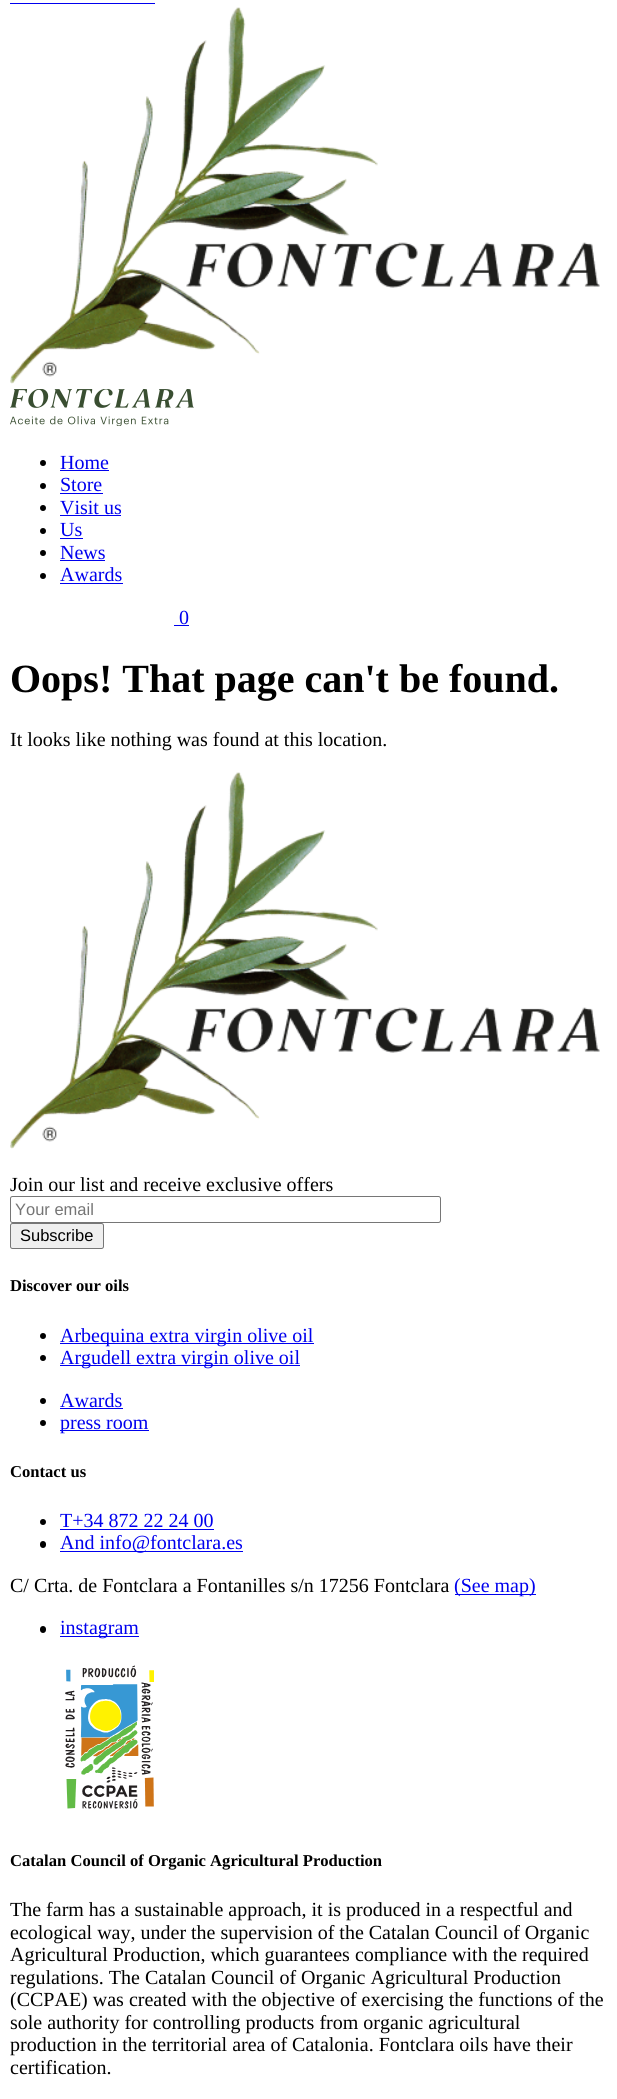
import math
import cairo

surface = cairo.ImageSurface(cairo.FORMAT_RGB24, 617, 2099)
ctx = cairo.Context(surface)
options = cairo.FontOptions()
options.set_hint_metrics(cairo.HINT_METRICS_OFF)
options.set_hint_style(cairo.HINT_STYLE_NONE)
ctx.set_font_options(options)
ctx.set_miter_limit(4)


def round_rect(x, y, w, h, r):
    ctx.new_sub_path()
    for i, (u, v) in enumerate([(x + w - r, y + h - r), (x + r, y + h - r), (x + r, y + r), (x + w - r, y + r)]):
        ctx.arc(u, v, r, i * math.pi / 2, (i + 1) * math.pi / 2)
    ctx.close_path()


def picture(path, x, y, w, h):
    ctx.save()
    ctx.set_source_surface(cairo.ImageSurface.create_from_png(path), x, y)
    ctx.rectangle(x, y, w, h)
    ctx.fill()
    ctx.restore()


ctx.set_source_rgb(1, 1, 1)
ctx.paint()
ctx.set_source_rgb(0, 0, 0.933)
ctx.rectangle(10, 3, 145, 1)
ctx.fill()
picture("img1.png", 10, 7, 590, 377)
picture("img2.png", 10, 389, 184, 37)
ctx.set_source_rgb(0, 0, 0)
ctx.arc(43, 463, 3, 0, 2 * math.pi)
ctx.fill()
ctx.select_font_face("Liberation Serif")
ctx.set_font_size(20)
ctx.set_source_rgb(0, 0, 0.933)
ctx.move_to(60, 469)
ctx.show_text("Home")
ctx.rectangle(60, 470, 49, 1)
ctx.fill()
ctx.set_source_rgb(0, 0, 0)
ctx.arc(43, 486, 3, 0, 2 * math.pi)
ctx.fill()
ctx.set_source_rgb(0, 0, 0.933)
ctx.move_to(60, 491)
ctx.show_text("Store")
ctx.rectangle(60, 493, 43, 1)
ctx.fill()
ctx.set_source_rgb(0, 0, 0)
ctx.arc(43, 508, 3, 0, 2 * math.pi)
ctx.fill()
ctx.set_source_rgb(0, 0, 0.933)
ctx.move_to(60, 514)
ctx.show_text("Visit us")
ctx.rectangle(60, 515, 61, 1)
ctx.fill()
ctx.set_source_rgb(0, 0, 0)
ctx.arc(43, 531, 3, 0, 2 * math.pi)
ctx.fill()
ctx.set_source_rgb(0, 0, 0.933)
ctx.move_to(60, 536)
ctx.show_text("Us")
ctx.rectangle(60, 538, 23, 1)
ctx.fill()
ctx.set_source_rgb(0, 0, 0)
ctx.arc(43, 553, 3, 0, 2 * math.pi)
ctx.fill()
ctx.set_source_rgb(0, 0, 0.933)
ctx.move_to(60, 559)
ctx.show_text("News")
ctx.rectangle(60, 560, 45, 1)
ctx.fill()
ctx.set_source_rgb(0, 0, 0)
ctx.arc(43, 576, 3, 0, 2 * math.pi)
ctx.fill()
ctx.set_source_rgb(0, 0, 0.933)
ctx.move_to(60, 581)
ctx.show_text("Awards")
ctx.rectangle(60, 583, 63, 1)
ctx.fill()
ctx.move_to(179, 624)
ctx.show_text("0")
ctx.rectangle(174, 625, 15, 1)
ctx.fill()
ctx.select_font_face("Liberation Serif", cairo.FONT_SLANT_NORMAL, cairo.FONT_WEIGHT_BOLD)
ctx.set_font_size(40)
ctx.set_source_rgb(0, 0, 0)
ctx.move_to(10, 692)
ctx.show_text("Oops! That page can't be found.")
ctx.select_font_face("Liberation Serif")
ctx.set_font_size(20)
ctx.move_to(10, 746)
ctx.show_text("It looks like nothing was found at this location.")
picture("img1.png", 10, 772, 590, 377)
ctx.move_to(10, 1191)
ctx.show_text("Join our list and receive exclusive offers")
round_rect(10.5, 1196.5, 430, 26, 2)
ctx.set_source_rgb(0.463, 0.463, 0.463)
ctx.set_line_width(1)
ctx.stroke()
ctx.select_font_face("Liberation Sans")
ctx.set_font_size(16.5)
ctx.set_source_rgb(0.459, 0.459, 0.459)
ctx.move_to(15, 1215)
ctx.show_text("Your email")
ctx.set_source_rgb(0.937, 0.937, 0.937)
round_rect(10.5, 1223.5, 93, 25, 2)
ctx.fill_preserve()
ctx.set_source_rgb(0.463, 0.463, 0.463)
ctx.stroke()
ctx.set_source_rgb(0, 0, 0)
ctx.move_to(20, 1241)
ctx.show_text("Subscribe")
ctx.select_font_face("Liberation Serif", cairo.FONT_SLANT_NORMAL, cairo.FONT_WEIGHT_BOLD)
ctx.set_font_size(16.6)
ctx.move_to(10, 1291)
ctx.show_text("Discover our oils")
ctx.new_path()
ctx.arc(43, 1336, 3, 0, 2 * math.pi)
ctx.fill()
ctx.set_source_rgb(0, 0, 0.933)
ctx.rectangle(60, 1343, 254, 1)
ctx.fill()
ctx.select_font_face("Liberation Serif")
ctx.set_font_size(20)
ctx.move_to(60, 1342)
ctx.show_text("Arbequina extra virgin olive oil")
ctx.set_source_rgb(0, 0, 0)
ctx.new_path()
ctx.arc(43, 1358, 3, 0, 2 * math.pi)
ctx.fill()
ctx.set_source_rgb(0, 0, 0.933)
ctx.rectangle(60, 1365, 240, 1)
ctx.fill()
ctx.move_to(60, 1364)
ctx.show_text("Argudell extra virgin olive oil")
ctx.set_source_rgb(0, 0, 0)
ctx.new_path()
ctx.arc(43, 1401, 3, 0, 2 * math.pi)
ctx.fill()
ctx.set_source_rgb(0, 0, 0.933)
ctx.move_to(60, 1407)
ctx.show_text("Awards")
ctx.rectangle(60, 1408, 63, 1)
ctx.fill()
ctx.set_source_rgb(0, 0, 0)
ctx.arc(43, 1423, 3, 0, 2 * math.pi)
ctx.fill()
ctx.set_source_rgb(0, 0, 0.933)
ctx.rectangle(60, 1430, 89, 1)
ctx.fill()
ctx.move_to(60, 1429)
ctx.show_text("press room")
ctx.select_font_face("Liberation Serif", cairo.FONT_SLANT_NORMAL, cairo.FONT_WEIGHT_BOLD)
ctx.set_font_size(16.6)
ctx.set_source_rgb(0, 0, 0)
ctx.move_to(10, 1477)
ctx.show_text("Contact us")
ctx.new_path()
ctx.arc(43, 1522, 3, 0, 2 * math.pi)
ctx.fill()
ctx.select_font_face("Liberation Serif")
ctx.set_font_size(20)
ctx.set_source_rgb(0, 0, 0.933)
ctx.move_to(60, 1527)
ctx.show_text("T+34 872 22 24 00")
ctx.rectangle(60, 1529, 154, 1)
ctx.fill()
ctx.set_source_rgb(0, 0, 0)
round_rect(40, 1541, 6, 7, 3)
ctx.fill()
ctx.set_source_rgb(0, 0, 0.933)
ctx.rectangle(60, 1551, 183, 1)
ctx.fill()
ctx.move_to(60, 1549)
ctx.show_text("And info@fontclara.es")
ctx.set_source_rgb(0, 0, 0)
ctx.move_to(10, 1592)
ctx.show_text("C/ Crta. de Fontclara a Fontanilles s/n 17256 Fontclara")
ctx.set_source_rgb(0, 0, 0.933)
ctx.rectangle(455, 1594, 81, 1)
ctx.fill()
ctx.move_to(454, 1592)
ctx.show_text("(See map)")
ctx.set_source_rgb(0, 0, 0)
round_rect(40, 1626, 6, 7, 3)
ctx.fill()
ctx.set_source_rgb(0, 0, 0.933)
ctx.rectangle(60, 1636, 79, 1)
ctx.fill()
ctx.move_to(60, 1634)
ctx.show_text("instagram")
picture("img3.png", 65, 1665, 89, 144)
ctx.select_font_face("Liberation Serif", cairo.FONT_SLANT_NORMAL, cairo.FONT_WEIGHT_BOLD)
ctx.set_font_size(16.6)
ctx.set_source_rgb(0, 0, 0)
ctx.move_to(10, 1866)
ctx.show_text("Catalan Council of Organic Agricultural Production")
ctx.select_font_face("Liberation Serif")
ctx.set_font_size(20)
ctx.move_to(10, 1916)
ctx.show_text("The farm has a sustainable approach, it is produced in a respectful and")
ctx.move_to(10, 1939)
ctx.show_text("ecological way, under the supervision of the Catalan Council of Organic")
ctx.move_to(10, 1961)
ctx.show_text("Agricultural Production, which guarantees compliance with the required")
ctx.move_to(10, 1984)
ctx.show_text("regulations. The Catalan Council of Organic Agricultural Production")
ctx.move_to(10, 2006)
ctx.show_text("(CCPAE) was created with the objective of exercising the functions of the")
ctx.move_to(10, 2029)
ctx.show_text("sole authority for controlling products from organic agricultural")
ctx.move_to(10, 2051)
ctx.show_text("production in the territorial area of Catalonia. Fontclara oils have their")
ctx.move_to(10, 2074)
ctx.show_text("certification.")
surface.write_to_png("page.png")
